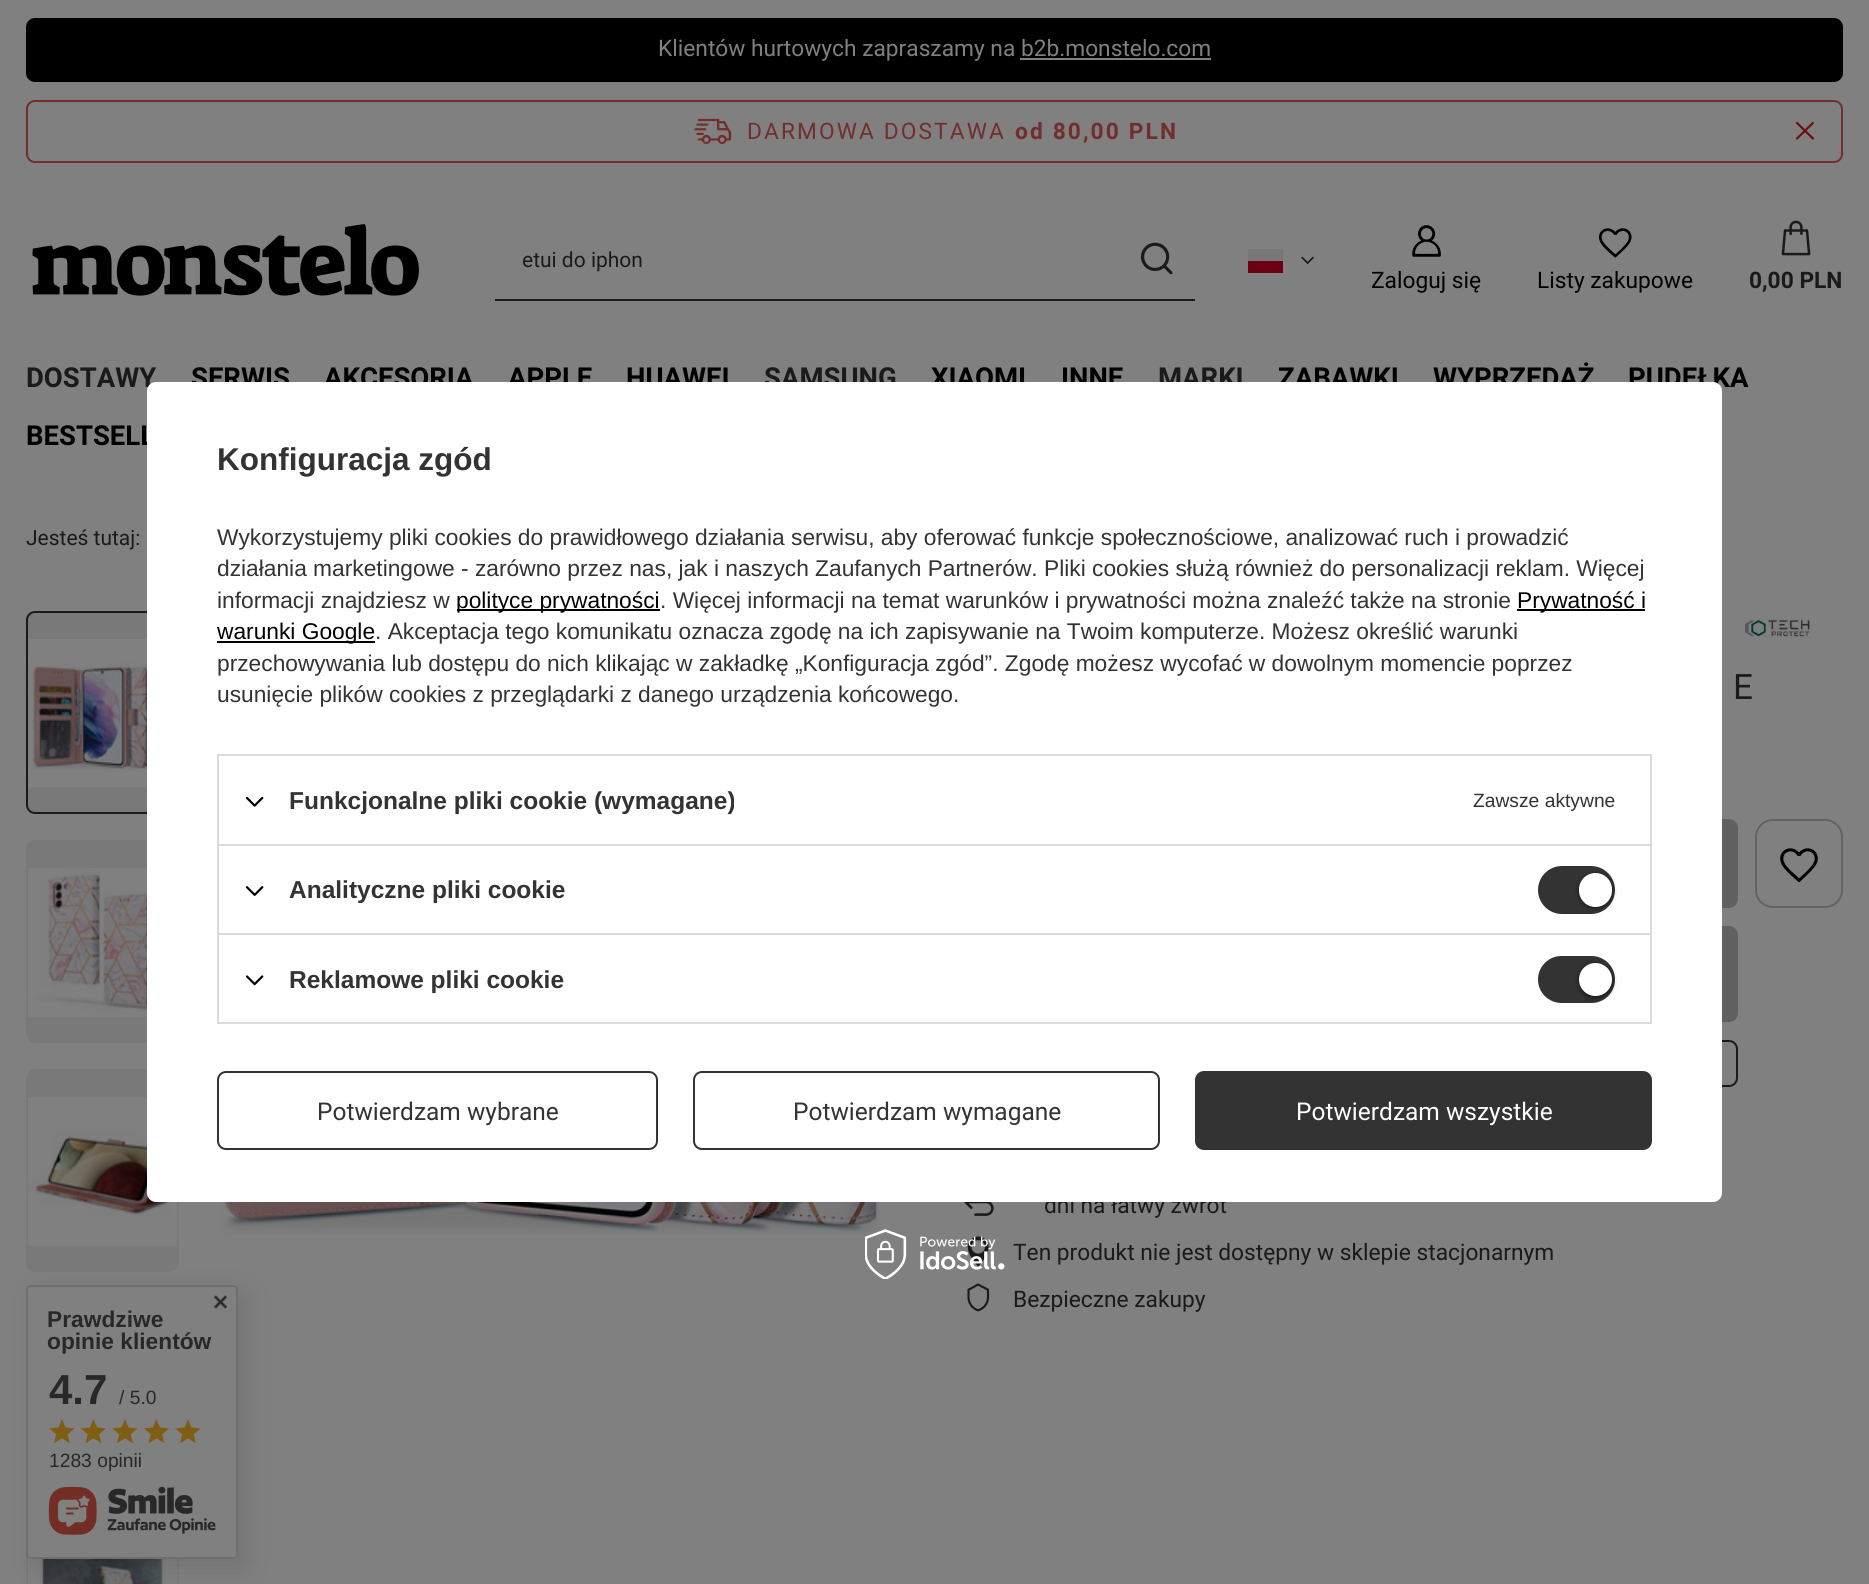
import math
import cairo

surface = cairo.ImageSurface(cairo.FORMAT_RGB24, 1869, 1584)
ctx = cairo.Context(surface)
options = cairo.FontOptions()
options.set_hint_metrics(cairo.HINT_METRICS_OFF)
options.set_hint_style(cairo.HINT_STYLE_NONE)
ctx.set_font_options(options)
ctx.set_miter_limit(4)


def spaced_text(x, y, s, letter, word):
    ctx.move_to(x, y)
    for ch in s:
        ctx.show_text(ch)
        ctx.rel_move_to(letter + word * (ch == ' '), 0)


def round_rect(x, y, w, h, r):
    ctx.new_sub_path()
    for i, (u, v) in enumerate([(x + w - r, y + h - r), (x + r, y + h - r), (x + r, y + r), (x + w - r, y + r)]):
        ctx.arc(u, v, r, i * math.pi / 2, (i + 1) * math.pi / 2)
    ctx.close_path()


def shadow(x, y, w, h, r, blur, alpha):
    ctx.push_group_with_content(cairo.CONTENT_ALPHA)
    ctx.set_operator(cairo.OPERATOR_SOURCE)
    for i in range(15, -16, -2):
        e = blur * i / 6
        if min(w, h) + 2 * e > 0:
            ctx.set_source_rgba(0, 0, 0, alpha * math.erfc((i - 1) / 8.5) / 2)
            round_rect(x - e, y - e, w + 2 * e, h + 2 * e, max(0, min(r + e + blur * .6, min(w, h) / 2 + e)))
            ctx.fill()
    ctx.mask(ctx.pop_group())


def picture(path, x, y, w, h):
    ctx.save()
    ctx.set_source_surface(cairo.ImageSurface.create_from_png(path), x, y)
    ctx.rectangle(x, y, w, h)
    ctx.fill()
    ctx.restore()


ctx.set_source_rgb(0.502, 0.502, 0.502)
ctx.paint()
ctx.set_source_rgb(0, 0, 0)
round_rect(27, 19, 1815, 62, 8)
ctx.fill_preserve()
ctx.stroke()
ctx.select_font_face("Roboto")
ctx.set_font_size(22.75)
ctx.set_source_rgb(0.502, 0.502, 0.502)
ctx.move_to(658, 56)
ctx.show_text("Klientów hurtowych zapraszamy na b2b.monstelo.com")
ctx.rectangle(1020, 58, 191, 2)
ctx.fill()
round_rect(27, 101, 1815, 61, 8)
ctx.set_source_rgb(0.447, 0.18, 0.18)
ctx.stroke()
picture("img1.png", 694, 118, 38, 26)
spaced_text(747, 139, "DARMOWA DOSTAWA", 2.1, 0)
ctx.select_font_face("Roboto", cairo.FONT_SLANT_NORMAL, cairo.FONT_WEIGHT_BOLD)
spaced_text(1015, 139, "od 80,00 PLN", 2.1, 0)
picture("img2.png", 1795, 121, 20, 19)
picture("img3.png", 32, 224, 387, 72)
ctx.set_source_rgb(0.102, 0.102, 0.102)
ctx.rectangle(495, 299, 700, 2)
ctx.fill()
ctx.select_font_face("Roboto")
ctx.set_font_size(21)
ctx.move_to(522, 267)
ctx.show_text("etui do iphon")
picture("img4.png", 1140, 242, 33, 33)
ctx.set_source_rgb(0.471, 0.471, 0.471)
ctx.rectangle(1248, 249, 35, 12)
ctx.fill()
ctx.set_source_rgb(0.424, 0, 0.078)
ctx.rectangle(1248, 261, 35, 12)
ctx.fill()
picture("img5.png", 1301, 256, 13, 8)
picture("img6.png", 1412, 225, 29, 32)
ctx.set_font_size(22.75)
ctx.set_source_rgb(0, 0, 0)
ctx.move_to(1371, 288)
ctx.show_text("Zaloguj się")
picture("img7.png", 1599, 228, 33, 30)
ctx.move_to(1537, 288)
ctx.show_text("Listy zakupowe")
picture("img8.png", 1781, 220, 30, 36)
ctx.select_font_face("Roboto", cairo.FONT_SLANT_NORMAL, cairo.FONT_WEIGHT_BOLD)
ctx.set_source_rgb(0.102, 0.102, 0.102)
ctx.move_to(1749, 288)
ctx.show_text("0,00 PLN")
ctx.set_font_size(27.5)
ctx.move_to(26, 387)
ctx.show_text("DOSTAWY")
ctx.set_source_rgb(0, 0, 0)
ctx.move_to(191, 387)
ctx.show_text("SERWIS")
ctx.move_to(324, 387)
ctx.show_text("AKCESORIA")
ctx.move_to(508, 387)
ctx.show_text("APPLE")
ctx.move_to(626, 387)
ctx.show_text("HUAWEI")
ctx.set_source_rgb(0.102, 0.102, 0.102)
ctx.move_to(764, 387)
ctx.show_text("SAMSUNG")
ctx.set_source_rgb(0, 0, 0)
ctx.move_to(931, 387)
ctx.show_text("XIAOMI")
ctx.move_to(1061, 387)
ctx.show_text("INNE")
ctx.set_source_rgb(0.102, 0.102, 0.102)
ctx.move_to(1158, 387)
ctx.show_text("MARKI")
ctx.set_source_rgb(0, 0, 0)
ctx.move_to(1278, 387)
ctx.show_text("ZABAWKI")
ctx.move_to(1433, 387)
ctx.show_text("WYPRZEDAŻ")
ctx.move_to(1628, 387)
ctx.show_text("PUDEŁKA")
ctx.move_to(26, 445)
ctx.show_text("BESTSELL")
ctx.select_font_face("Roboto")
ctx.set_font_size(21)
ctx.set_source_rgb(0.102, 0.102, 0.102)
ctx.move_to(26, 545)
ctx.show_text("Jesteś tutaj:")
ctx.set_source_rgb(0.475, 0.475, 0.475)
round_rect(27, 612, 151, 201, 8)
ctx.fill_preserve()
ctx.set_source_rgb(0.102, 0.102, 0.102)
ctx.stroke()
picture("img9.png", 28, 639, 119, 149)
ctx.set_source_rgb(0.475, 0.475, 0.475)
round_rect(26, 840, 153, 203, 9)
ctx.fill()
picture("img10.png", 28, 868, 119, 149)
round_rect(26, 1069, 153, 203, 9)
ctx.fill()
picture("img11.png", 28, 1097, 149, 149)
ctx.rectangle(27, 1529, 151, 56)
ctx.stroke()
picture("img12.png", 28, 1558, 149, 26)
picture("img13.png", 218, 1202, 662, 33)
picture("img14.png", 1745, 619, 65, 20)
ctx.set_font_size(35)
ctx.set_source_rgb(0.102, 0.102, 0.102)
ctx.move_to(1733, 699)
ctx.show_text("E")
ctx.set_source_rgb(0.38, 0.38, 0.38)
round_rect(962, 820, 775, 87, 8)
ctx.fill_preserve()
ctx.stroke()
round_rect(1756, 820, 86, 87, 17)
ctx.set_source_rgb(0.384, 0.392, 0.392)
ctx.stroke()
picture("img15.png", 1780, 848, 38, 35)
ctx.set_source_rgb(0.38, 0.38, 0.38)
round_rect(962, 927, 775, 94, 8)
ctx.fill_preserve()
ctx.stroke()
round_rect(962, 1041, 775, 45, 8)
ctx.set_source_rgb(0.102, 0.102, 0.102)
ctx.stroke()
picture("img16.png", 964, 1202, 30, 14)
ctx.set_font_size(22.75)
ctx.move_to(1044, 1213)
ctx.show_text("dni na łatwy zwrot")
picture("img17.png", 967, 1236, 22, 31)
ctx.move_to(1013, 1260)
ctx.show_text("Ten produkt nie jest dostępny w sklepie stacjonarnym")
picture("img18.png", 967, 1283, 23, 29)
ctx.move_to(1013, 1307)
ctx.show_text("Bezpieczne zakupy")
ctx.set_source_rgb(1, 1, 1)
round_rect(147, 382, 1575, 820, 9)
ctx.fill()
ctx.select_font_face("Liberation Sans", cairo.FONT_SLANT_NORMAL, cairo.FONT_WEIGHT_BOLD)
ctx.set_font_size(31.5)
ctx.set_source_rgb(0.2, 0.2, 0.2)
ctx.move_to(217, 470)
ctx.show_text("Konfiguracja zgód")
ctx.select_font_face("Liberation Sans")
ctx.set_font_size(22.75)
ctx.move_to(217, 545)
ctx.show_text("Wykorzystujemy pliki cookies do prawidłowego działania serwisu, aby oferować funkcje społecznościowe, analizować ruch i prowadzić")
ctx.move_to(217, 576)
ctx.show_text("działania marketingowe - zarówno przez nas, jak i naszych Zaufanych Partnerów. Pliki cookies służą również do personalizacji reklam. Więcej")
ctx.move_to(217, 608)
ctx.show_text("informacji znajdziesz w")
ctx.set_source_rgb(0, 0, 0)
ctx.rectangle(457, 609, 203, 2)
ctx.fill()
ctx.move_to(456, 608)
ctx.show_text("polityce prywatności")
ctx.set_source_rgb(0.2, 0.2, 0.2)
ctx.move_to(660, 608)
ctx.show_text(". Więcej informacji na temat warunków i prywatności można znaleźć także na stronie")
ctx.set_source_rgb(0, 0, 0)
ctx.rectangle(1517, 609, 128, 2)
ctx.fill()
ctx.move_to(1517, 608)
ctx.show_text("Prywatność i")
ctx.rectangle(217, 641, 158, 2)
ctx.fill()
ctx.move_to(217, 639)
ctx.show_text("warunki Google")
ctx.set_source_rgb(0.2, 0.2, 0.2)
ctx.move_to(375, 639)
ctx.show_text(". Akceptacja tego komunikatu oznacza zgodę na ich zapisywanie na Twoim komputerze. Możesz określić warunki")
ctx.move_to(217, 671)
ctx.show_text("przechowywania lub dostępu do nich klikając w zakładkę „Konfiguracja zgód”. Zgodę możesz wycofać w dowolnym momencie poprzez")
ctx.move_to(217, 702)
ctx.show_text("usunięcie plików cookies z przeglądarki z danego urządzenia końcowego.")
ctx.set_source_rgb(0.859, 0.859, 0.859)
ctx.rectangle(217, 754, 1435, 2)
ctx.fill()
ctx.rectangle(1650, 754, 2, 90)
ctx.fill()
ctx.rectangle(217, 754, 2, 90)
ctx.fill()
picture("img19.png", 245, 796, 19, 11)
ctx.select_font_face("Liberation Sans", cairo.FONT_SLANT_NORMAL, cairo.FONT_WEIGHT_BOLD)
ctx.set_font_size(24.5)
ctx.set_source_rgb(0.2, 0.2, 0.2)
ctx.move_to(289, 809)
ctx.show_text("Funkcjonalne pliki cookie (wymagane)")
ctx.select_font_face("Liberation Sans")
ctx.set_font_size(19.25)
ctx.move_to(1473, 807)
ctx.show_text("Zawsze aktywne")
ctx.set_source_rgb(0.859, 0.859, 0.859)
ctx.rectangle(217, 844, 1435, 2)
ctx.fill()
ctx.rectangle(1650, 844, 2, 89)
ctx.fill()
ctx.rectangle(217, 844, 2, 89)
ctx.fill()
picture("img20.png", 245, 886, 19, 10)
ctx.select_font_face("Liberation Sans", cairo.FONT_SLANT_NORMAL, cairo.FONT_WEIGHT_BOLD)
ctx.set_font_size(24.5)
ctx.set_source_rgb(0.2, 0.2, 0.2)
ctx.move_to(289, 898)
ctx.show_text("Analityczne pliki cookie")
round_rect(1538, 866, 77, 48, 24)
ctx.fill()
ctx.set_source_rgb(0, 0, 0)
shadow(1579, 875, 33, 33, 16.5, 2.5, 0.56)
ctx.set_source_rgb(1, 1, 1)
round_rect(1579, 873, 33, 34, 16.5)
ctx.fill()
ctx.rectangle(218, 934, 1433, 89)
ctx.set_source_rgb(0.859, 0.859, 0.859)
ctx.stroke()
picture("img21.png", 245, 975, 19, 11)
ctx.set_source_rgb(0.2, 0.2, 0.2)
ctx.move_to(289, 988)
ctx.show_text("Reklamowe pliki cookie")
round_rect(1538, 956, 77, 47, 23.5)
ctx.fill()
ctx.set_source_rgb(0, 0, 0)
shadow(1579, 964, 33, 34, 16.5, 2.5, 0.56)
ctx.set_source_rgb(1, 1, 1)
ctx.arc(1595.5, 979.5, 16.5, 0, 2 * math.pi)
ctx.fill()
round_rect(218, 1072, 439, 77, 8)
ctx.set_source_rgb(0.2, 0.2, 0.2)
ctx.stroke()
ctx.select_font_face("Roboto")
ctx.move_to(317, 1120)
ctx.show_text("Potwierdzam wybrane")
round_rect(694, 1072, 465, 77, 8)
ctx.stroke()
ctx.move_to(793, 1120)
ctx.show_text("Potwierdzam wymagane")
round_rect(1196, 1072, 455, 77, 8)
ctx.fill_preserve()
ctx.stroke()
ctx.set_source_rgb(1, 1, 1)
ctx.move_to(1296, 1120)
ctx.show_text("Potwierdzam wszystkie")
picture("img22.png", 865, 1229, 140, 50)
ctx.set_source_rgb(0, 0, 0)
shadow(35, 1293, 212, 275, 5, 13, 0.1)
ctx.set_source_rgb(0.502, 0.502, 0.502)
round_rect(27, 1286, 210, 272, 4)
ctx.fill_preserve()
ctx.set_source_rgb(0.435, 0.435, 0.435)
ctx.stroke()
picture("img23.png", 213, 1295, 15, 14)
ctx.select_font_face("Liberation Sans", cairo.FONT_SLANT_NORMAL, cairo.FONT_WEIGHT_BOLD)
ctx.set_font_size(22.75)
ctx.set_source_rgb(0.157, 0.157, 0.157)
ctx.move_to(47, 1327)
ctx.show_text("Prawdziwe")
ctx.move_to(47, 1349)
ctx.show_text("opinie klientów")
ctx.set_font_size(42)
ctx.move_to(49, 1404)
ctx.show_text("4.7")
ctx.select_font_face("Liberation Sans")
ctx.set_font_size(19.25)
ctx.move_to(119, 1404)
ctx.show_text("/ 5.0")
picture("img24.png", 49, 1419, 26, 25)
picture("img25.png", 81, 1419, 25, 25)
picture("img24.png", 112, 1419, 26, 25)
picture("img25.png", 144, 1419, 25, 25)
picture("img24.png", 175, 1419, 26, 25)
ctx.move_to(49, 1467)
ctx.show_text("1283 opinii")
picture("img26.png", 48, 1486, 168, 49)
surface.write_to_png("page.png")
